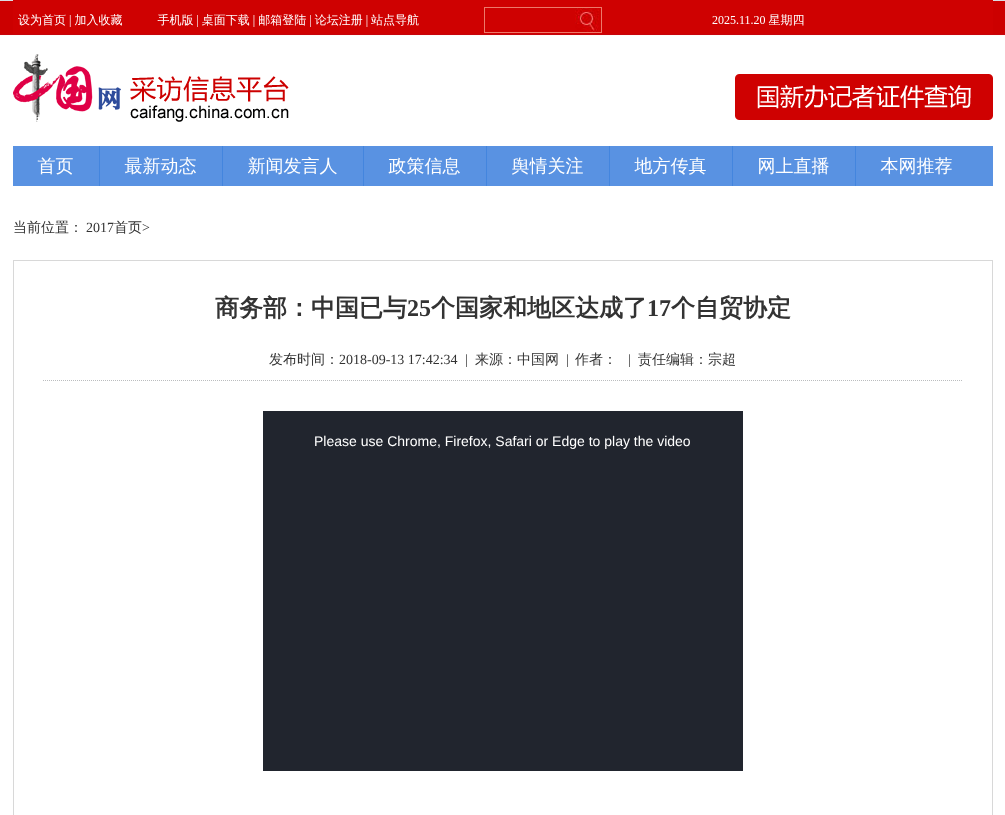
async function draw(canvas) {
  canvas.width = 1005
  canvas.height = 815
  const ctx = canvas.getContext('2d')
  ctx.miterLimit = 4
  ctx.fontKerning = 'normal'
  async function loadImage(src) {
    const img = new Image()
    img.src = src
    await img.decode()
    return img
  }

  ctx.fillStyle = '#fff'
  ctx.fillRect(0, 0, 1005, 815)
  ctx.drawImage(await loadImage('image0.png'), 0, 0, 1005, 186)
  ctx.font = '500 14px WenQuanYi Zen Hei'
  ctx.fillStyle = '#333'
  ctx.fillText('当前位置：', 13, 232)
  ctx.font = '14px Liberation Serif'
  ctx.fillText('2017', 86, 232)
  ctx.font = '500 14px WenQuanYi Zen Hei'
  ctx.fillText('首页', 114, 232)
  ctx.font = '14px Liberation Serif'
  ctx.fillText('>', 142, 232)
  ctx.strokeStyle = '#d8d8d8'
  ctx.strokeRect(13.5, 260.5, 979, 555)
  ctx.font = 'bold 24px WenQuanYi Zen Hei'
  ctx.fillText('商务部：中国已与', 215, 316)
  ctx.font = 'bold 24px Liberation Serif'
  ctx.fillText('25', 407, 316)
  ctx.font = 'bold 24px WenQuanYi Zen Hei'
  ctx.fillText('个国家和地区达成了', 431, 316)
  ctx.font = 'bold 24px Liberation Serif'
  ctx.fillText('17', 647, 316)
  ctx.font = 'bold 24px WenQuanYi Zen Hei'
  ctx.fillText('个自贸协定', 671, 316)
  ctx.beginPath()
  ctx.moveTo(43, 380.5)
  ctx.lineTo(963, 380.5)
  ctx.strokeStyle = '#bbbdbf'
  ctx.setLineDash([1, 1])
  ctx.stroke()
  ctx.font = '500 14px WenQuanYi Zen Hei'
  ctx.fillText('发布时间：', 269, 364)
  ctx.font = '14px Liberation Serif'
  ctx.fillText('2018-09-13 17:42:34', 339, 364)
  ctx.fillText('|', 465, 364)
  ctx.font = '500 14px WenQuanYi Zen Hei'
  ctx.fillText('来源：中国网', 475, 364)
  ctx.font = '14px Liberation Serif'
  ctx.fillText('|', 566, 364)
  ctx.font = '500 14px WenQuanYi Zen Hei'
  ctx.fillText('作者：', 575, 364)
  ctx.font = '14px Liberation Serif'
  ctx.fillText('|', 628, 364)
  ctx.font = '500 14px WenQuanYi Zen Hei'
  ctx.fillText('责任编辑：宗超', 638, 364)
  ctx.fillStyle = '#21252e'
  ctx.fillRect(263, 411, 480, 360)
  ctx.font = '14px Liberation Sans'
  ctx.fillStyle = '#fff'
  ctx.fillText('Please use Chrome, Firefox, Safari or Edge to play the video', 314, 446)
}

draw(document.querySelector('canvas'))
